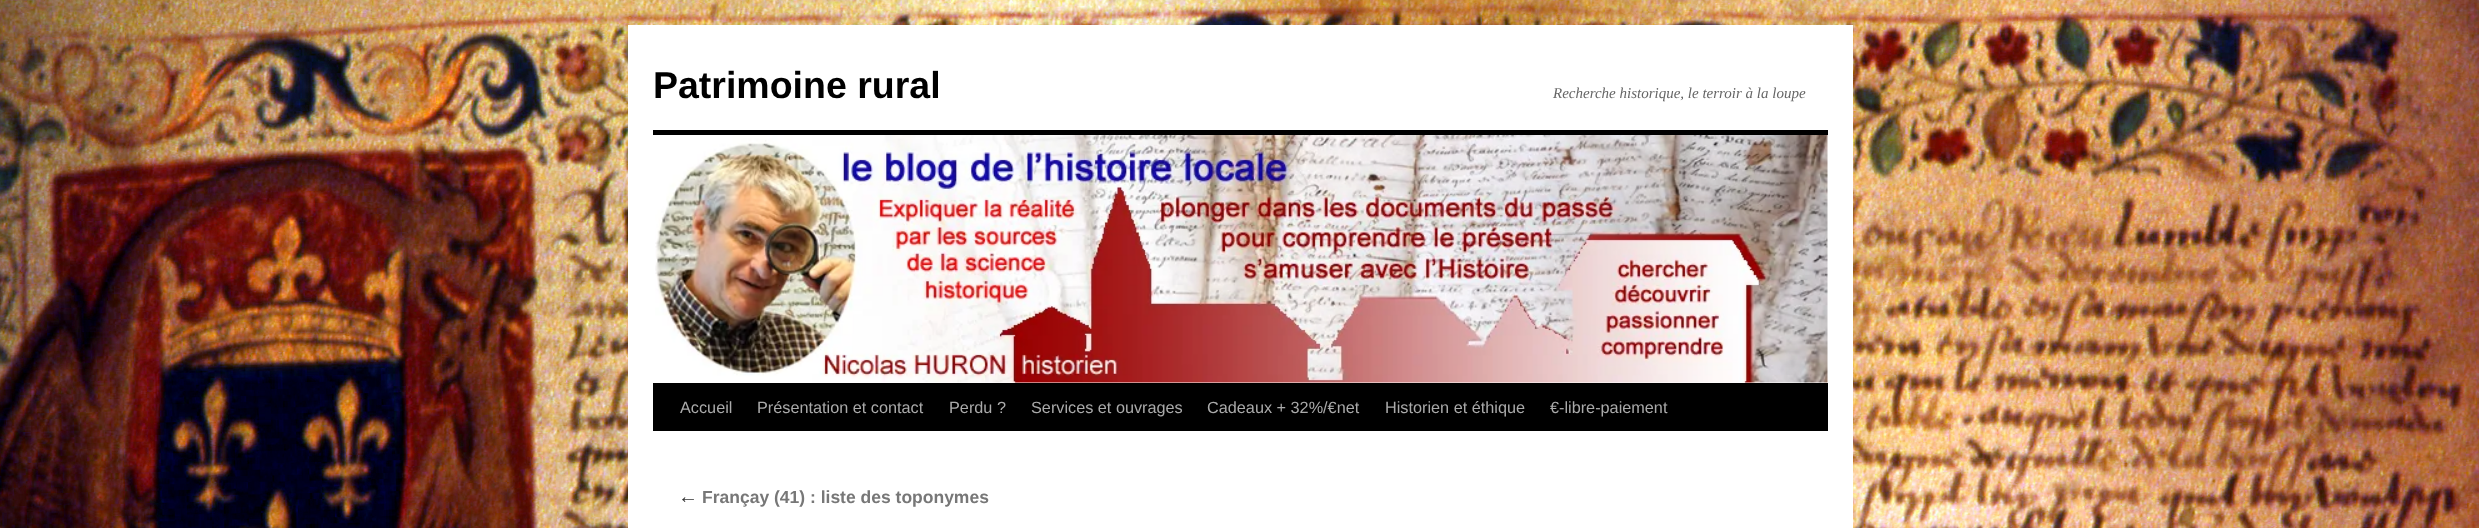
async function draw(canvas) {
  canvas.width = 2479
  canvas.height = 528
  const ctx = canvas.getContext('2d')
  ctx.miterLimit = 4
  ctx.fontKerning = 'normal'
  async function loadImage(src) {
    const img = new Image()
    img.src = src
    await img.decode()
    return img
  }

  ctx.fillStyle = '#fff'
  ctx.fillRect(0, 0, 2479, 528)
  ctx.drawImage(await loadImage('image0.png'), 0, 0, 2479, 528)
  ctx.fillRect(628, 25, 1225, 503)
  ctx.font = 'bold 37.5px Liberation Sans'
  ctx.fillStyle = '#000'
  ctx.fillText('Patrimoine rural', 653, 98)
  ctx.font = 'italic 15px Liberation Serif'
  ctx.fillStyle = '#666'
  ctx.fillText('Recherche historique, le terroir à la loupe', 1553, 98)
  ctx.fillStyle = '#000'
  ctx.fillRect(653, 130, 1175, 5)
  ctx.fillRect(653, 383, 1175, 48)
  ctx.drawImage(await loadImage('image1.png'), 655, 135, 1173, 248)
  ctx.font = '16.25px Liberation Sans'
  ctx.fillStyle = '#aaa'
  ctx.fillText('Accueil', 680, 413)
  ctx.fillText('Présentation et contact', 757, 413)
  ctx.fillText('Perdu ?', 949, 413)
  ctx.fillText('Services et ouvrages', 1031, 413)
  ctx.fillText('Cadeaux + 32%/€net', 1207, 413)
  ctx.fillText('Historien et éthique', 1385, 413)
  ctx.fillText('€-libre-paiement', 1550, 413)
  ctx.font = 'italic 20px Liberation Serif'
  ctx.fillStyle = '#333'
  ctx.fillText('←', 678, 503)
  ctx.font = 'bold 17.5px Liberation Sans'
  ctx.fillStyle = '#777'
  ctx.fillText('Françay (41) : liste des toponymes', 702, 503)
}

draw(document.querySelector('canvas'))
